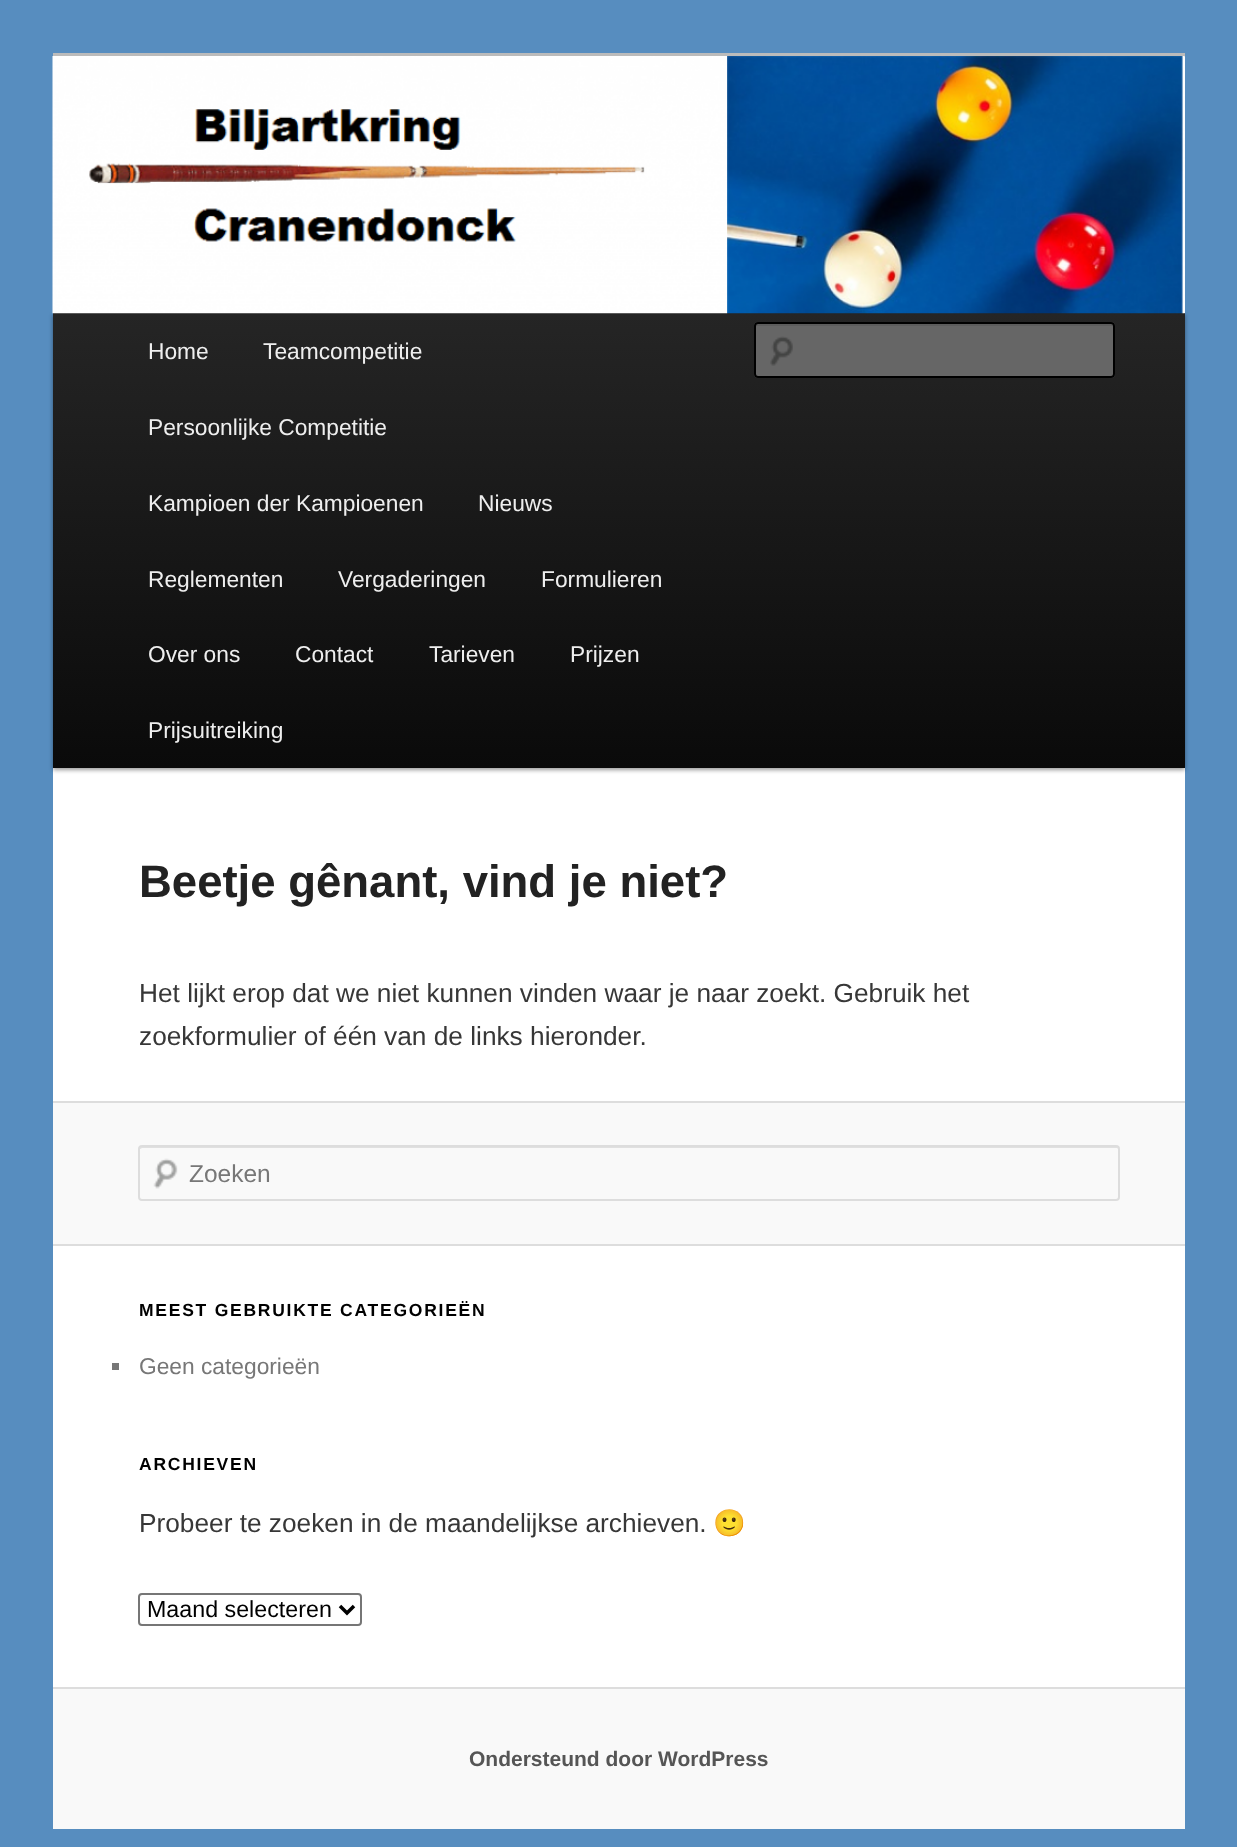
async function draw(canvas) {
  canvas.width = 1237
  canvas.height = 1847
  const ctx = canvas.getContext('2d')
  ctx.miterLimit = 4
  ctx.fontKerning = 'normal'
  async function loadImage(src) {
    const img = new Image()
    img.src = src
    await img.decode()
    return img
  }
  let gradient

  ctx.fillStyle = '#578dbf'
  ctx.fillRect(0, 0, 1237, 1847)
  ctx.fillStyle = '#fff'
  ctx.fillRect(53, 57, 1132, 1630)
  ctx.fillStyle = '#bbb'
  ctx.fillRect(53, 53, 1132, 4)
  ctx.fillStyle = '#00000066'
  ctx.filter = 'blur(2px)'
  ctx.beginPath()
  ctx.rect(53, 315, 1132, 455)
  ctx.fill()
  ctx.filter = 'none'
  gradient = ctx.createLinearGradient(619, 313, 619, 768)
  gradient.addColorStop(0, '#252525')
  gradient.addColorStop(1, '#0a0a0a')
  ctx.fillStyle = gradient
  ctx.fillRect(53, 313, 1132, 455)
  ctx.drawImage(await loadImage('image0.png'), 52, 56, 1133, 258)
  ctx.font = '22.75px Liberation Sans'
  ctx.fillStyle = '#eee'
  ctx.fillText('Home', 148, 359)
  ctx.fillText('Teamcompetitie', 263, 359)
  ctx.fillText('Persoonlijke Competitie', 148, 435)
  ctx.fillText('Kampioen der Kampioenen', 148, 511)
  ctx.fillText('Nieuws', 478, 511)
  ctx.fillText('Reglementen', 148, 587)
  ctx.fillText('Vergaderingen', 338, 587)
  ctx.fillText('Formulieren', 541, 587)
  ctx.fillText('Over ons', 148, 662)
  ctx.fillText('Contact', 295, 662)
  ctx.fillText('Tarieven', 429, 662)
  ctx.fillText('Prijzen', 570, 662)
  ctx.fillText('Prijsuitreiking', 148, 738)
  ctx.fillStyle = '#666'
  ctx.beginPath()
  ctx.roundRect(754, 322, 361, 56, 4)
  ctx.fill()
  ctx.drawImage(await loadImage('image1.png'), 770, 336, 23, 30)
  ctx.fillStyle = '#5c5c5c'
  ctx.beginPath()
  ctx.moveTo(758, 326)
  ctx.lineTo(1111, 326)
  ctx.bezierCurveTo(1112, 326, 1113, 326, 1113, 327)
  ctx.bezierCurveTo(1113, 326, 1113, 324, 1111, 324)
  ctx.lineTo(758, 324)
  ctx.bezierCurveTo(756, 324, 756, 326, 756, 327)
  ctx.bezierCurveTo(756, 326, 757, 326, 758, 326)
  ctx.closePath()
  ctx.fill()
  ctx.beginPath()
  ctx.roundRect(755, 323, 359, 54, 3)
  ctx.strokeStyle = '#000'
  ctx.lineWidth = 2
  ctx.stroke()
  ctx.font = 'bold 45.5px Liberation Sans'
  ctx.fillStyle = '#222'
  ctx.fillText('Beetje gênant, vind je niet?', 139, 897)
  ctx.font = '26.25px Liberation Sans'
  ctx.fillStyle = '#373737'
  ctx.fillText('Het lijkt erop dat we niet kunnen vinden waar je naar zoekt. Gebruik het', 139, 1002)
  ctx.fillText('zoekformulier of één van de links hieronder.', 139, 1045)
  ctx.fillStyle = '#f9f9f9'
  ctx.fillRect(53, 1103, 1132, 141)
  ctx.fillStyle = '#ddd'
  ctx.fillRect(53, 1101, 1132, 2)
  ctx.fillRect(53, 1244, 1132, 2)
  ctx.drawImage(await loadImage('image2.png'), 153, 1158, 25, 31)
  ctx.fillStyle = '#e0e0e0'
  ctx.beginPath()
  ctx.moveTo(142, 1148)
  ctx.lineTo(1117, 1148)
  ctx.bezierCurveTo(1118, 1148, 1118, 1149, 1118, 1150)
  ctx.lineTo(1118, 1148)
  ctx.bezierCurveTo(1118, 1147, 1117, 1146, 1116, 1146)
  ctx.lineTo(142, 1146)
  ctx.bezierCurveTo(141, 1146, 140, 1147, 140, 1148)
  ctx.lineTo(140, 1149)
  ctx.closePath()
  ctx.fill()
  ctx.beginPath()
  ctx.roundRect(139, 1146, 980, 54, 3)
  ctx.strokeStyle = '#ddd'
  ctx.stroke()
  ctx.font = '24.5px Liberation Sans'
  ctx.fillStyle = '#777'
  ctx.fillText('Zoeken', 189, 1182)
  ctx.letterSpacing = '1.75px'
  ctx.font = 'bold 17.5px Liberation Sans'
  ctx.fillStyle = '#000'
  ctx.fillText('MEEST GEBRUIKTE CATEGORIEËN', 139, 1316)
  ctx.fillStyle = '#777'
  ctx.fillRect(112, 1363, 7, 7)
  ctx.letterSpacing = '0px'
  ctx.font = '22.75px Liberation Sans'
  ctx.fillText('Geen categorieën', 139, 1374)
  ctx.letterSpacing = '1.75px'
  ctx.font = 'bold 17.5px Liberation Sans'
  ctx.fillStyle = '#000'
  ctx.fillText('ARCHIEVEN', 139, 1470)
  ctx.letterSpacing = '0px'
  ctx.font = '26.25px Liberation Sans'
  ctx.fillStyle = '#373737'
  ctx.fillText('Probeer te zoeken in de maandelijkse archieven.', 139, 1532)
  ctx.font = '26.25px Noto Color Emoji'
  ctx.fillText('🙂', 713, 1532)
  ctx.beginPath()
  ctx.roundRect(139, 1594, 222, 31, 3)
  ctx.strokeStyle = '#767676'
  ctx.stroke()
  ctx.beginPath()
  ctx.moveTo(340, 1606)
  ctx.lineTo(347, 1613)
  ctx.lineTo(354, 1606)
  ctx.strokeStyle = '#000'
  ctx.lineWidth = 3.5
  ctx.stroke()
  ctx.font = '23.25px Liberation Sans'
  ctx.fillStyle = '#000'
  ctx.fillText('Maand selecteren', 147, 1617)
  ctx.fillStyle = '#f9f9f9'
  ctx.fillRect(53, 1689, 1132, 140)
  ctx.fillStyle = '#ddd'
  ctx.fillRect(53, 1687, 1132, 2)
  ctx.font = 'bold 21px Liberation Sans'
  ctx.fillStyle = '#555'
  ctx.fillText('Ondersteund door WordPress', 469, 1766)
}

draw(document.querySelector('canvas'))
